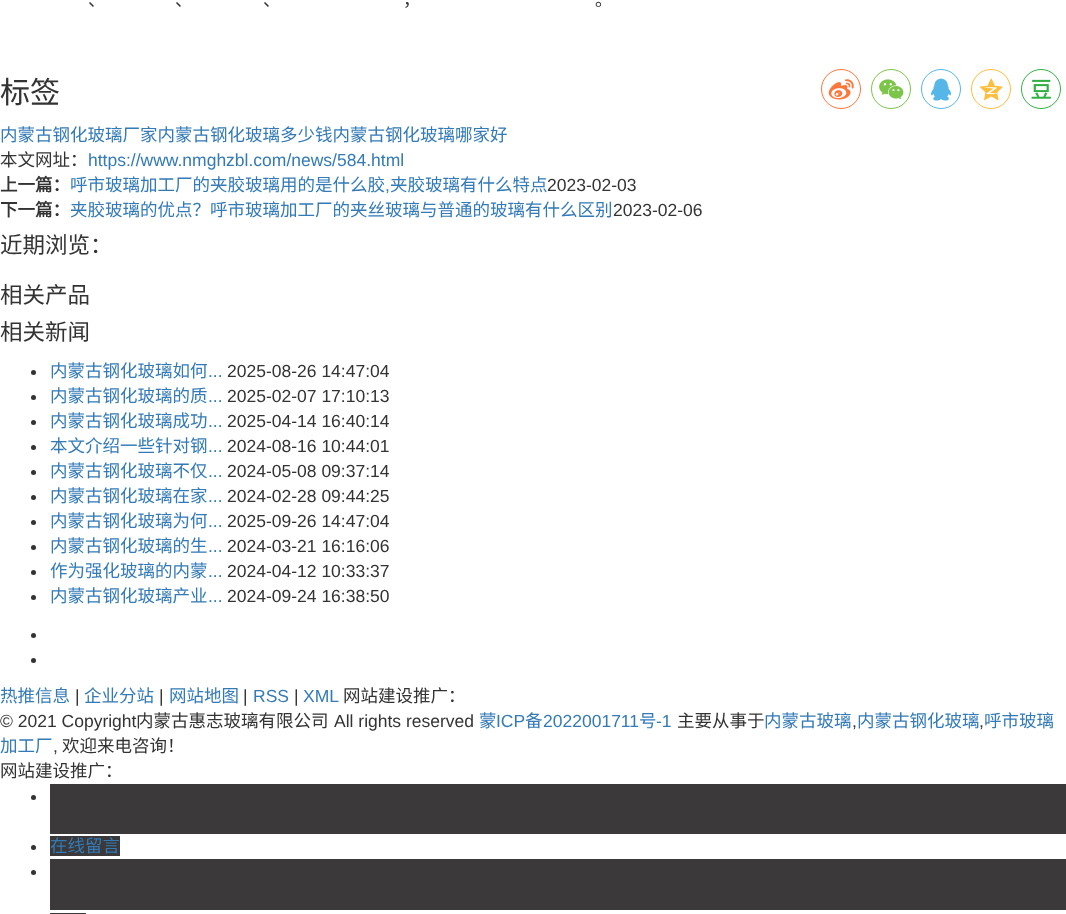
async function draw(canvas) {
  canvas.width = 1066
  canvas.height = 914
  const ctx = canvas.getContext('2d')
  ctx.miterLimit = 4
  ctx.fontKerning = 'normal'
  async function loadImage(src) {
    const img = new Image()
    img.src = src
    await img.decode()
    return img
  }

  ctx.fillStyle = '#fff'
  ctx.fillRect(0, 0, 1066, 914)
  ctx.font = '17.5px Noto Sans CJK SC'
  ctx.fillStyle = '#333'
  ctx.fillText('、', 88, 6)
  ctx.fillText('、', 175, 6)
  ctx.fillText('、', 263, 6)
  ctx.fillText('，', 403, 6)
  ctx.fillText('。', 595, 6)
  ctx.font = '30px Noto Sans CJK SC'
  ctx.fillText('标签', 0, 103)
  ctx.font = '17.5px Noto Sans CJK SC'
  ctx.fillStyle = '#337ab7'
  ctx.fillText('内蒙古钢化玻璃厂家内蒙古钢化玻璃多少钱内蒙古钢化玻璃哪家好', 0, 141)
  ctx.beginPath()
  ctx.arc(841, 89, 19.5, 0, 2 * Math.PI)
  ctx.strokeStyle = '#ff763b'
  ctx.stroke()
  ctx.drawImage(await loadImage('image0.png'), 828, 79, 26, 21)
  ctx.beginPath()
  ctx.arc(891, 89, 19.5, 0, 2 * Math.PI)
  ctx.strokeStyle = '#7bc549'
  ctx.stroke()
  ctx.drawImage(await loadImage('image1.png'), 879, 79, 25, 21)
  ctx.beginPath()
  ctx.arc(941, 89, 19.5, 0, 2 * Math.PI)
  ctx.strokeStyle = '#56b6e7'
  ctx.stroke()
  ctx.drawImage(await loadImage('image2.png'), 931, 78, 20, 23)
  ctx.beginPath()
  ctx.arc(991, 89, 19.5, 0, 2 * Math.PI)
  ctx.strokeStyle = '#fdbe3d'
  ctx.stroke()
  ctx.drawImage(await loadImage('image3.png'), 979, 78, 24, 23)
  ctx.beginPath()
  ctx.arc(1041, 89, 19.5, 0, 2 * Math.PI)
  ctx.strokeStyle = '#33b045'
  ctx.stroke()
  ctx.drawImage(await loadImage('image4.png'), 1031, 79, 20, 20)
  ctx.fillStyle = '#333'
  ctx.fillText('本文网址：', 0, 166)
  ctx.font = '17.5px Liberation Sans'
  ctx.fillStyle = '#337ab7'
  ctx.fillText('https://www.nmghzbl.com/news/584.html', 88, 166)
  ctx.font = 'bold 17.5px Noto Sans CJK SC'
  ctx.fillStyle = '#333'
  ctx.fillText('上一篇：', 0, 191)
  ctx.font = '17.5px Noto Sans CJK SC'
  ctx.fillStyle = '#337ab7'
  ctx.fillText('呼市玻璃加工厂的夹胶玻璃用的是什么胶', 70, 191)
  ctx.font = '17.5px Liberation Sans'
  ctx.fillText(',', 385, 191)
  ctx.font = '17.5px Noto Sans CJK SC'
  ctx.fillText('夹胶玻璃有什么特点', 390, 191)
  ctx.font = '17.5px Liberation Sans'
  ctx.fillStyle = '#333'
  ctx.fillText('2023-02-03', 547, 191)
  ctx.font = 'bold 17.5px Noto Sans CJK SC'
  ctx.fillText('下一篇：', 0, 216)
  ctx.font = '17.5px Noto Sans CJK SC'
  ctx.fillStyle = '#337ab7'
  ctx.fillText('夹胶玻璃的优点？呼市玻璃加工厂的夹丝玻璃与普通的玻璃有什么区别', 70, 216)
  ctx.font = '17.5px Liberation Sans'
  ctx.fillStyle = '#333'
  ctx.fillText('2023-02-06', 613, 216)
  ctx.font = '22.5px Noto Sans CJK SC'
  ctx.fillText('近期浏览：', 0, 253)
  ctx.fillText('相关产品', 0, 303)
  ctx.fillText('相关新闻', 0, 340)
  ctx.beginPath()
  ctx.arc(33.5, 372.5, 2.5, 0, 2 * Math.PI)
  ctx.fill()
  ctx.font = '17.5px Noto Sans CJK SC'
  ctx.fillStyle = '#337ab7'
  ctx.fillText('内蒙古钢化玻璃如何', 50, 377)
  ctx.font = '17.5px Liberation Sans'
  ctx.fillStyle = '#333'
  ctx.fillText('2025-08-26 14:47:04', 227, 377)
  ctx.fillStyle = '#337ab7'
  ctx.fillText('...', 208, 377)
  ctx.fillStyle = '#333'
  ctx.beginPath()
  ctx.arc(33.5, 397.5, 2.5, 0, 2 * Math.PI)
  ctx.fill()
  ctx.font = '17.5px Noto Sans CJK SC'
  ctx.fillStyle = '#337ab7'
  ctx.fillText('内蒙古钢化玻璃的质', 50, 402)
  ctx.font = '17.5px Liberation Sans'
  ctx.fillStyle = '#333'
  ctx.fillText('2025-02-07 17:10:13', 227, 402)
  ctx.fillStyle = '#337ab7'
  ctx.fillText('...', 208, 402)
  ctx.fillStyle = '#333'
  ctx.beginPath()
  ctx.arc(33.5, 422.5, 2.5, 0, 2 * Math.PI)
  ctx.fill()
  ctx.font = '17.5px Noto Sans CJK SC'
  ctx.fillStyle = '#337ab7'
  ctx.fillText('内蒙古钢化玻璃成功', 50, 427)
  ctx.font = '17.5px Liberation Sans'
  ctx.fillStyle = '#333'
  ctx.fillText('2025-04-14 16:40:14', 227, 427)
  ctx.fillStyle = '#337ab7'
  ctx.fillText('...', 208, 427)
  ctx.fillStyle = '#333'
  ctx.beginPath()
  ctx.arc(33.5, 447.5, 2.5, 0, 2 * Math.PI)
  ctx.fill()
  ctx.font = '17.5px Noto Sans CJK SC'
  ctx.fillStyle = '#337ab7'
  ctx.fillText('本文介绍一些针对钢', 50, 452)
  ctx.font = '17.5px Liberation Sans'
  ctx.fillStyle = '#333'
  ctx.fillText('2024-08-16 10:44:01', 227, 452)
  ctx.fillStyle = '#337ab7'
  ctx.fillText('...', 208, 452)
  ctx.fillStyle = '#333'
  ctx.beginPath()
  ctx.arc(33.5, 472.5, 2.5, 0, 2 * Math.PI)
  ctx.fill()
  ctx.font = '17.5px Noto Sans CJK SC'
  ctx.fillStyle = '#337ab7'
  ctx.fillText('内蒙古钢化玻璃不仅', 50, 477)
  ctx.font = '17.5px Liberation Sans'
  ctx.fillStyle = '#333'
  ctx.fillText('2024-05-08 09:37:14', 227, 477)
  ctx.fillStyle = '#337ab7'
  ctx.fillText('...', 208, 477)
  ctx.fillStyle = '#333'
  ctx.beginPath()
  ctx.arc(33.5, 497.5, 2.5, 0, 2 * Math.PI)
  ctx.fill()
  ctx.font = '17.5px Noto Sans CJK SC'
  ctx.fillStyle = '#337ab7'
  ctx.fillText('内蒙古钢化玻璃在家', 50, 502)
  ctx.font = '17.5px Liberation Sans'
  ctx.fillStyle = '#333'
  ctx.fillText('2024-02-28 09:44:25', 227, 502)
  ctx.fillStyle = '#337ab7'
  ctx.fillText('...', 208, 502)
  ctx.fillStyle = '#333'
  ctx.beginPath()
  ctx.arc(33.5, 522.5, 2.5, 0, 2 * Math.PI)
  ctx.fill()
  ctx.font = '17.5px Noto Sans CJK SC'
  ctx.fillStyle = '#337ab7'
  ctx.fillText('内蒙古钢化玻璃为何', 50, 527)
  ctx.font = '17.5px Liberation Sans'
  ctx.fillStyle = '#333'
  ctx.fillText('2025-09-26 14:47:04', 227, 527)
  ctx.fillStyle = '#337ab7'
  ctx.fillText('...', 208, 527)
  ctx.fillStyle = '#333'
  ctx.beginPath()
  ctx.arc(33.5, 547.5, 2.5, 0, 2 * Math.PI)
  ctx.fill()
  ctx.font = '17.5px Noto Sans CJK SC'
  ctx.fillStyle = '#337ab7'
  ctx.fillText('内蒙古钢化玻璃的生', 50, 552)
  ctx.font = '17.5px Liberation Sans'
  ctx.fillStyle = '#333'
  ctx.fillText('2024-03-21 16:16:06', 227, 552)
  ctx.fillStyle = '#337ab7'
  ctx.fillText('...', 208, 552)
  ctx.fillStyle = '#333'
  ctx.beginPath()
  ctx.arc(33.5, 572.5, 2.5, 0, 2 * Math.PI)
  ctx.fill()
  ctx.font = '17.5px Noto Sans CJK SC'
  ctx.fillStyle = '#337ab7'
  ctx.fillText('作为强化玻璃的内蒙', 50, 577)
  ctx.font = '17.5px Liberation Sans'
  ctx.fillStyle = '#333'
  ctx.fillText('2024-04-12 10:33:37', 227, 577)
  ctx.fillStyle = '#337ab7'
  ctx.fillText('...', 208, 577)
  ctx.fillStyle = '#333'
  ctx.beginPath()
  ctx.arc(33.5, 597.5, 2.5, 0, 2 * Math.PI)
  ctx.fill()
  ctx.font = '17.5px Noto Sans CJK SC'
  ctx.fillStyle = '#337ab7'
  ctx.fillText('内蒙古钢化玻璃产业', 50, 602)
  ctx.font = '17.5px Liberation Sans'
  ctx.fillStyle = '#333'
  ctx.fillText('2024-09-24 16:38:50', 227, 602)
  ctx.fillStyle = '#337ab7'
  ctx.fillText('...', 208, 602)
  ctx.fillStyle = '#333'
  ctx.beginPath()
  ctx.arc(33.5, 635.5, 2.5, 0, 2 * Math.PI)
  ctx.fill()
  ctx.beginPath()
  ctx.arc(33.5, 660.5, 2.5, 0, 2 * Math.PI)
  ctx.fill()
  ctx.font = '17.5px Noto Sans CJK SC'
  ctx.fillStyle = '#337ab7'
  ctx.fillText('热推信息', 0, 702)
  ctx.font = '17.5px Liberation Sans'
  ctx.fillStyle = '#333'
  ctx.fillText('|', 75, 702)
  ctx.font = '17.5px Noto Sans CJK SC'
  ctx.fillStyle = '#337ab7'
  ctx.fillText('企业分站', 84, 702)
  ctx.font = '17.5px Liberation Sans'
  ctx.fillStyle = '#333'
  ctx.fillText('|', 159, 702)
  ctx.font = '17.5px Noto Sans CJK SC'
  ctx.fillStyle = '#337ab7'
  ctx.fillText('网站地图', 169, 702)
  ctx.font = '17.5px Liberation Sans'
  ctx.fillStyle = '#333'
  ctx.fillText('|', 243, 702)
  ctx.fillStyle = '#337ab7'
  ctx.fillText('RSS', 253, 702)
  ctx.fillStyle = '#333'
  ctx.fillText('|', 294, 702)
  ctx.fillStyle = '#337ab7'
  ctx.fillText('XML', 303, 702)
  ctx.font = '17.5px Noto Sans CJK SC'
  ctx.fillStyle = '#333'
  ctx.fillText('网站建设推广：', 343, 702)
  ctx.font = '17.5px Liberation Sans'
  ctx.fillText('© 2021 Copyright', 0, 727)
  ctx.font = '17.5px Noto Sans CJK SC'
  ctx.fillText('内蒙古惠志玻璃有限公司', 136, 727)
  ctx.font = '17.5px Liberation Sans'
  ctx.fillText('All rights reserved', 334, 727)
  ctx.font = '17.5px Noto Sans CJK SC'
  ctx.fillStyle = '#337ab7'
  ctx.fillText('蒙', 479, 727)
  ctx.font = '17.5px Liberation Sans'
  ctx.fillText('ICP', 496, 727)
  ctx.font = '17.5px Noto Sans CJK SC'
  ctx.fillText('备', 525, 727)
  ctx.font = '17.5px Liberation Sans'
  ctx.fillText('2022001711', 543, 727)
  ctx.font = '17.5px Noto Sans CJK SC'
  ctx.fillText('号', 639, 727)
  ctx.font = '17.5px Liberation Sans'
  ctx.fillText('-1', 656, 727)
  ctx.font = '17.5px Noto Sans CJK SC'
  ctx.fillStyle = '#333'
  ctx.fillText('主要从事于', 677, 727)
  ctx.fillStyle = '#337ab7'
  ctx.fillText('内蒙古玻璃', 764, 727)
  ctx.fillText('内蒙古钢化玻璃', 857, 727)
  ctx.fillText('呼市玻璃', 984, 727)
  ctx.font = '17.5px Liberation Sans'
  ctx.fillStyle = '#333'
  ctx.fillText(',', 852, 727)
  ctx.fillText(',', 979, 727)
  ctx.font = '17.5px Noto Sans CJK SC'
  ctx.fillStyle = '#337ab7'
  ctx.fillText('加工厂', 0, 752)
  ctx.font = '17.5px Liberation Sans'
  ctx.fillStyle = '#333'
  ctx.fillText(',', 53, 752)
  ctx.font = '17.5px Noto Sans CJK SC'
  ctx.fillText('欢迎来电咨询！', 62, 752)
  ctx.fillText('网站建设推广：', 0, 777)
  ctx.fillStyle = '#3b3939'
  ctx.fillRect(50, 784, 1016, 50)
  ctx.fillStyle = '#333'
  ctx.beginPath()
  ctx.arc(33.5, 797.5, 2.5, 0, 2 * Math.PI)
  ctx.fill()
  ctx.beginPath()
  ctx.arc(33.5, 847.5, 2.5, 0, 2 * Math.PI)
  ctx.fill()
  ctx.fillStyle = '#3b3939'
  ctx.fillRect(50, 836, 70, 20)
  ctx.fillStyle = '#337ab7'
  ctx.fillText('在线留言', 50, 852)
  ctx.fillStyle = '#3b3939'
  ctx.fillRect(50, 859, 1016, 51)
  ctx.fillStyle = '#333'
  ctx.beginPath()
  ctx.arc(33.5, 872.5, 2.5, 0, 2 * Math.PI)
  ctx.fill()
  ctx.fillStyle = '#3b3939'
  ctx.fillRect(50, 913, 36, 1)
}

draw(document.querySelector('canvas'))
